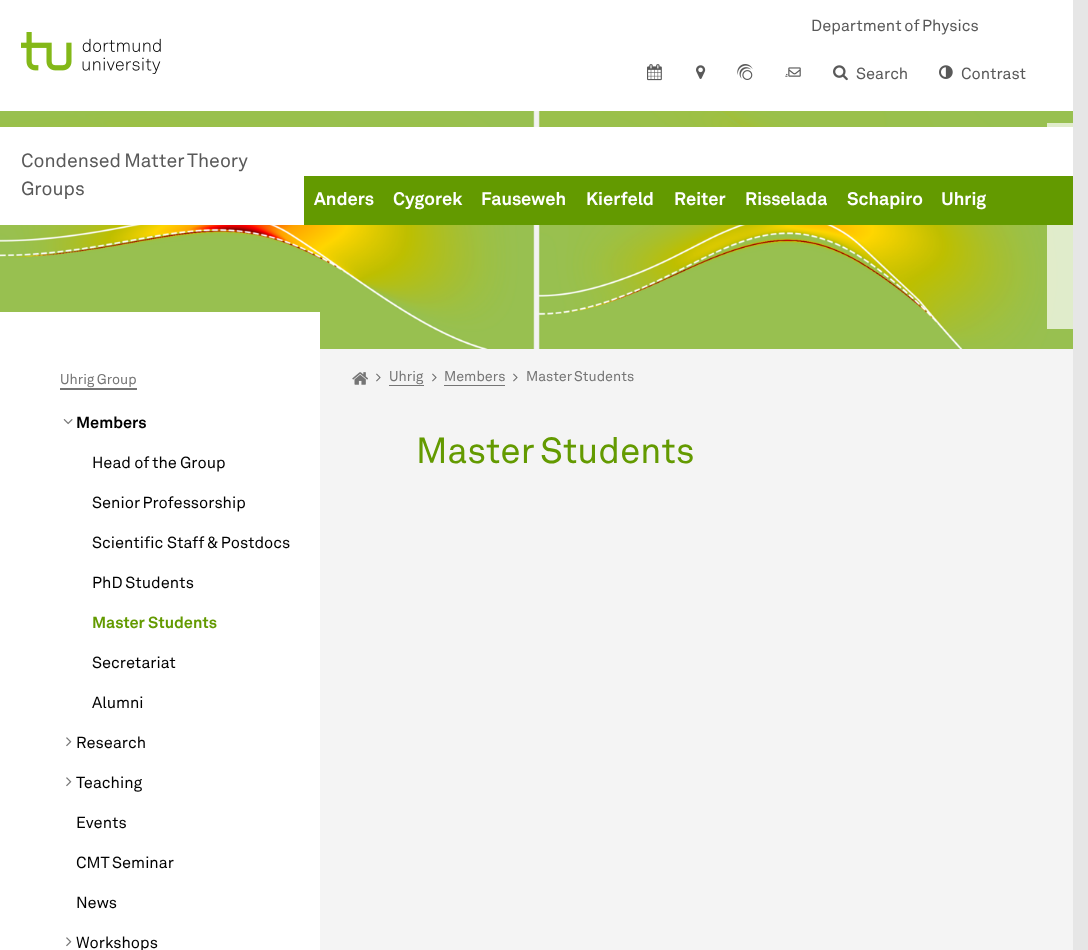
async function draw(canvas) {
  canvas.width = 1088
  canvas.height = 950
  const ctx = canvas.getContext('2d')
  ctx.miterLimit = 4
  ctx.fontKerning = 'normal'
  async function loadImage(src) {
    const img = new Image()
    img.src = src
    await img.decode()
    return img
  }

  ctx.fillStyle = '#e6e6e6'
  ctx.fillRect(0, 0, 1088, 950)
  ctx.fillStyle = '#fff'
  ctx.fillRect(0, 0, 1073, 111)
  ctx.wordSpacing = '-1px'
  ctx.font = '16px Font'
  ctx.fillStyle = '#595959'
  ctx.fillText('Department of Physics', 811, 31)
  ctx.drawImage(await loadImage('image0.png'), 21, 32, 140, 42)
  ctx.drawImage(await loadImage('image1.png'), 647, 64, 15, 17)
  ctx.drawImage(await loadImage('image2.png'), 696, 65, 10, 14)
  ctx.drawImage(await loadImage('image3.png'), 737, 64, 16, 16)
  ctx.drawImage(await loadImage('image4.png'), 785, 67, 16, 10)
  ctx.drawImage(await loadImage('image5.png'), 833, 65, 15, 16)
  ctx.wordSpacing = '0px'
  ctx.fillText('Search', 856, 79)
  ctx.drawImage(await loadImage('image6.png'), 939, 65, 14, 14)
  ctx.fillText('Contrast', 961, 79)
  ctx.drawImage(await loadImage('image7.png'), 0, 111, 1073, 238)
  ctx.fillStyle = '#ffffffb3'
  ctx.fillRect(1047, 123, 26, 206)
  ctx.fillStyle = '#fff'
  ctx.fillRect(0, 127, 1073, 98)
  ctx.wordSpacing = '-1px'
  ctx.font = '19px Font'
  ctx.fillStyle = '#595959'
  ctx.fillText('Condensed Matter Theory', 21, 167)
  ctx.wordSpacing = '0px'
  ctx.fillText('Groups', 21, 195)
  ctx.fillStyle = '#639a00'
  ctx.fillRect(304, 176, 769, 49)
  ctx.font = 'bold 18px Font'
  ctx.fillStyle = '#fff'
  ctx.fillText('Anders', 314, 205)
  ctx.fillText('Cygorek', 393, 205)
  ctx.fillText('Fauseweh', 481, 205)
  ctx.fillText('Kierfeld', 586, 205)
  ctx.fillText('Reiter', 674, 205)
  ctx.fillText('Risselada', 745, 205)
  ctx.fillText('Schapiro', 847, 205)
  ctx.fillText('Uhrig', 941, 205)
  ctx.fillStyle = '#f4f4f4'
  ctx.fillRect(320, 349, 753, 601)
  ctx.fillStyle = '#fff'
  ctx.fillRect(0, 312, 320, 638)
  ctx.wordSpacing = '-1px'
  ctx.font = '14px Font'
  ctx.fillStyle = '#757575'
  ctx.fillText('Uhrig Group', 60, 384)
  ctx.fillRect(60, 388, 77, 2)
  ctx.drawImage(await loadImage('image8.png'), 63, 419, 10, 6)
  ctx.wordSpacing = '0px'
  ctx.font = 'bold 16px Font'
  ctx.fillStyle = '#000'
  ctx.fillText('Members', 76, 428)
  ctx.wordSpacing = '-0.5px'
  ctx.font = '16px Font'
  ctx.fillText('Head of the Group', 92, 468)
  ctx.wordSpacing = '-1px'
  ctx.fillText('Senior Professorship', 92, 508)
  ctx.wordSpacing = '0px'
  ctx.fillText('Scientific Staff & Postdocs', 92, 548)
  ctx.wordSpacing = '-1px'
  ctx.fillText('PhD Students', 92, 588)
  ctx.wordSpacing = '0px'
  ctx.font = 'bold 16px Font'
  ctx.fillStyle = '#639a00'
  ctx.fillText('Master Students', 92, 628)
  ctx.font = '16px Font'
  ctx.fillStyle = '#000'
  ctx.fillText('Secretariat', 92, 668)
  ctx.fillText('Alumni', 92, 708)
  ctx.drawImage(await loadImage('image9.png'), 66, 737, 6, 10)
  ctx.fillText('Research', 76, 748)
  ctx.drawImage(await loadImage('image9.png'), 66, 777, 6, 10)
  ctx.fillText('Teaching', 76, 788)
  ctx.fillText('Events', 76, 828)
  ctx.wordSpacing = '-1px'
  ctx.fillText('CMT Seminar', 76, 868)
  ctx.wordSpacing = '0px'
  ctx.fillText('News', 76, 908)
  ctx.drawImage(await loadImage('image9.png'), 66, 937, 6, 10)
  ctx.fillText('Workshops', 76, 948)
  ctx.drawImage(await loadImage('image10.png'), 352, 372, 16, 13)
  ctx.drawImage(await loadImage('image11.png'), 376, 373, 5, 9)
  ctx.font = '14px Font'
  ctx.fillStyle = '#757575'
  ctx.fillText('Uhrig', 389, 381)
  ctx.fillRect(389, 385, 35, 1)
  ctx.drawImage(await loadImage('image11.png'), 432, 373, 5, 9)
  ctx.fillText('Members', 444, 381)
  ctx.fillRect(444, 385, 61, 1)
  ctx.drawImage(await loadImage('image11.png'), 513, 373, 5, 9)
  ctx.wordSpacing = '-1px'
  ctx.fillText('Master Students', 526, 381)
  ctx.wordSpacing = '-2px'
  ctx.font = '36px Font'
  ctx.fillStyle = '#639a00'
  ctx.fillText('Master Students', 416, 463)
}

draw(document.querySelector('canvas'))
